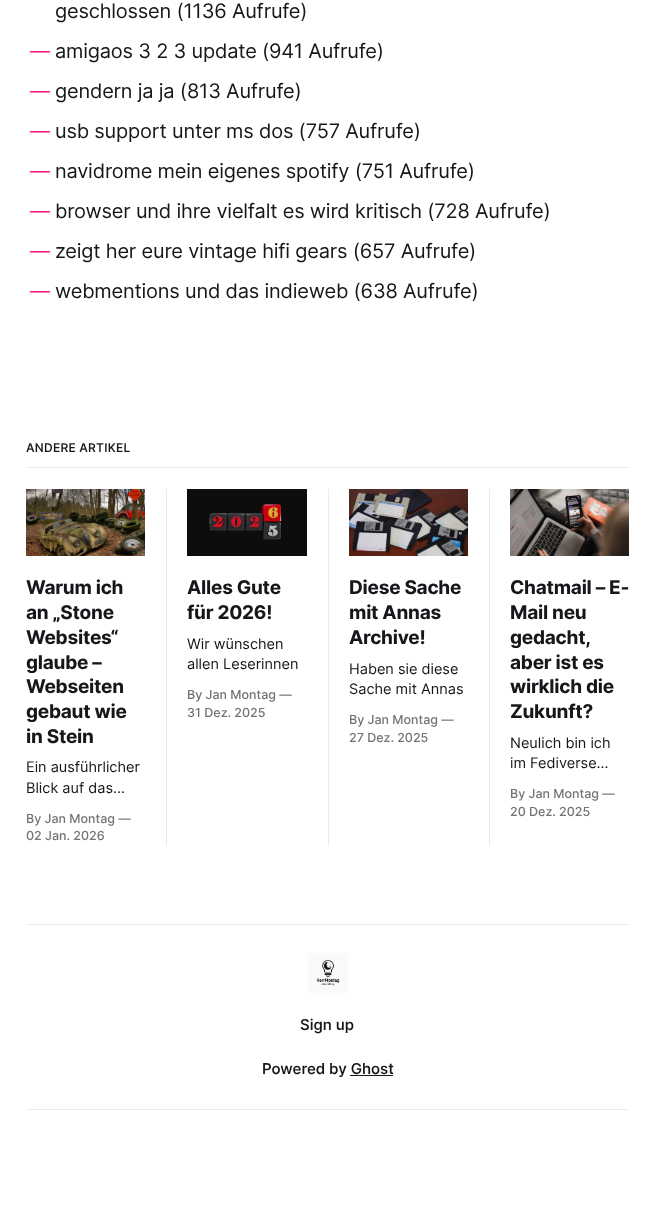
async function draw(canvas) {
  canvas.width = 655
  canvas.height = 1207
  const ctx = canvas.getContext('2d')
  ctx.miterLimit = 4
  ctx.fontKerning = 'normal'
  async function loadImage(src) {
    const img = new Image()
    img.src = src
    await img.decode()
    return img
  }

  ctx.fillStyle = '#fff'
  ctx.fillRect(0, 0, 655, 1207)
  ctx.letterSpacing = '-0.2px'
  ctx.font = '20px Inter'
  ctx.fillStyle = '#15171a'
  ctx.fillText('geschlossen (1136 Aufrufe)', 55, 18)
  ctx.fillStyle = '#ff1a75'
  ctx.fillText('—', 30, 58)
  ctx.fillStyle = '#15171a'
  ctx.fillText('amigaos 3 2 3 update (941 Aufrufe)', 55, 58)
  ctx.fillStyle = '#ff1a75'
  ctx.fillText('—', 30, 98)
  ctx.fillStyle = '#15171a'
  ctx.fillText('gendern ja ja (813 Aufrufe)', 55, 98)
  ctx.fillStyle = '#ff1a75'
  ctx.fillText('—', 30, 138)
  ctx.fillStyle = '#15171a'
  ctx.fillText('usb support unter ms dos (757 Aufrufe)', 55, 138)
  ctx.fillStyle = '#ff1a75'
  ctx.fillText('—', 30, 178)
  ctx.fillStyle = '#15171a'
  ctx.fillText('navidrome mein eigenes spotify (751 Aufrufe)', 55, 178)
  ctx.fillStyle = '#ff1a75'
  ctx.fillText('—', 30, 218)
  ctx.fillStyle = '#15171a'
  ctx.fillText('browser und ihre vielfalt es wird kritisch (728 Aufrufe)', 55, 218)
  ctx.fillStyle = '#ff1a75'
  ctx.fillText('—', 30, 258)
  ctx.fillStyle = '#15171a'
  ctx.fillText('zeigt her eure vintage hifi gears (657 Aufrufe)', 55, 258)
  ctx.fillStyle = '#ff1a75'
  ctx.fillText('—', 30, 298)
  ctx.fillStyle = '#15171a'
  ctx.fillText('webmentions und das indieweb (638 Aufrufe)', 55, 298)
  ctx.fillStyle = '#ebebeb'
  ctx.fillRect(26, 467, 603, 1)
  ctx.letterSpacing = '0.25px'
  ctx.font = '500 12px Inter'
  ctx.fillStyle = '#15171a'
  ctx.fillText('ANDERE ARTIKEL', 26, 452)
  ctx.drawImage(await loadImage('image0.png'), 26, 489, 119, 67)
  ctx.letterSpacing = '-0.25px'
  ctx.font = 'bold 19px Inter'
  ctx.fillText('Warum ich', 26, 594)
  ctx.fillText('an „Stone', 26, 619)
  ctx.fillText('Websites“', 26, 644)
  ctx.fillText('glaube –', 26, 669)
  ctx.fillText('Webseiten', 26, 693)
  ctx.fillText('gebaut wie', 26, 718)
  ctx.fillText('in Stein', 26, 743)
  ctx.letterSpacing = '0px'
  ctx.font = '14.5px Inter'
  ctx.fillText('Ein ausführlicher', 26, 772)
  ctx.fillText('Blick auf das…', 26, 793)
  ctx.font = '500 12.5px "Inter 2"'
  ctx.fillStyle = '#737373'
  ctx.fillText('By Jan Montag —', 26, 823)
  ctx.fillText('02 Jan. 2026', 26, 840)
  ctx.fillStyle = '#ebebeb'
  ctx.fillRect(166, 489, 1, 357)
  ctx.drawImage(await loadImage('image1.png'), 187, 489, 120, 67)
  ctx.letterSpacing = '-0.25px'
  ctx.font = 'bold 19px Inter'
  ctx.fillStyle = '#15171a'
  ctx.fillText('Alles Gute', 187, 594)
  ctx.fillText('für 2026!', 187, 619)
  ctx.letterSpacing = '0px'
  ctx.font = '14.5px Inter'
  ctx.fillText('Wir wünschen', 187, 649)
  ctx.fillText('allen Leserinnen', 187, 669)
  ctx.font = '500 12.5px "Inter 2"'
  ctx.fillStyle = '#737373'
  ctx.fillText('By Jan Montag —', 187, 699)
  ctx.fillText('31 Dez. 2025', 187, 717)
  ctx.fillStyle = '#ebebeb'
  ctx.fillRect(328, 489, 1, 357)
  ctx.drawImage(await loadImage('image2.png'), 349, 489, 119, 67)
  ctx.letterSpacing = '-0.25px'
  ctx.font = 'bold 19px Inter'
  ctx.fillStyle = '#15171a'
  ctx.fillText('Diese Sache', 349, 594)
  ctx.fillText('mit Annas', 349, 619)
  ctx.fillText('Archive!', 349, 644)
  ctx.letterSpacing = '0px'
  ctx.font = '14.5px Inter'
  ctx.fillText('Haben sie diese', 349, 674)
  ctx.fillText('Sache mit Annas', 349, 694)
  ctx.font = '500 12.5px "Inter 2"'
  ctx.fillStyle = '#737373'
  ctx.fillText('By Jan Montag —', 349, 724)
  ctx.fillText('27 Dez. 2025', 349, 742)
  ctx.fillStyle = '#ebebeb'
  ctx.fillRect(489, 489, 1, 357)
  ctx.drawImage(await loadImage('image3.png'), 510, 489, 119, 67)
  ctx.letterSpacing = '-0.25px'
  ctx.font = 'bold 19px Inter'
  ctx.fillStyle = '#15171a'
  ctx.fillText('Chatmail – E-', 510, 594)
  ctx.fillText('Mail neu', 510, 619)
  ctx.fillText('gedacht,', 510, 644)
  ctx.fillText('aber ist es', 510, 669)
  ctx.fillText('wirklich die', 510, 693)
  ctx.fillText('Zukunft?', 510, 718)
  ctx.letterSpacing = '0px'
  ctx.font = '14.5px Inter'
  ctx.fillText('Neulich bin ich', 510, 748)
  ctx.fillText('im Fediverse…', 510, 768)
  ctx.font = '500 12.5px "Inter 2"'
  ctx.fillStyle = '#737373'
  ctx.fillText('By Jan Montag —', 510, 798)
  ctx.fillText('20 Dez. 2025', 510, 816)
  ctx.fillStyle = '#ebebeb'
  ctx.fillRect(26, 924, 603, 1)
  ctx.fillRect(26, 1109, 603, 1)
  ctx.drawImage(await loadImage('image4.png'), 308, 953, 40, 40)
  ctx.font = '500 15px Inter'
  ctx.fillStyle = '#15171a'
  ctx.fillText('Sign up', 300, 1030)
  ctx.fillText('Powered by Ghost', 262, 1074)
  ctx.fillRect(350, 1075, 43, 1)
}

draw(document.querySelector('canvas'))
